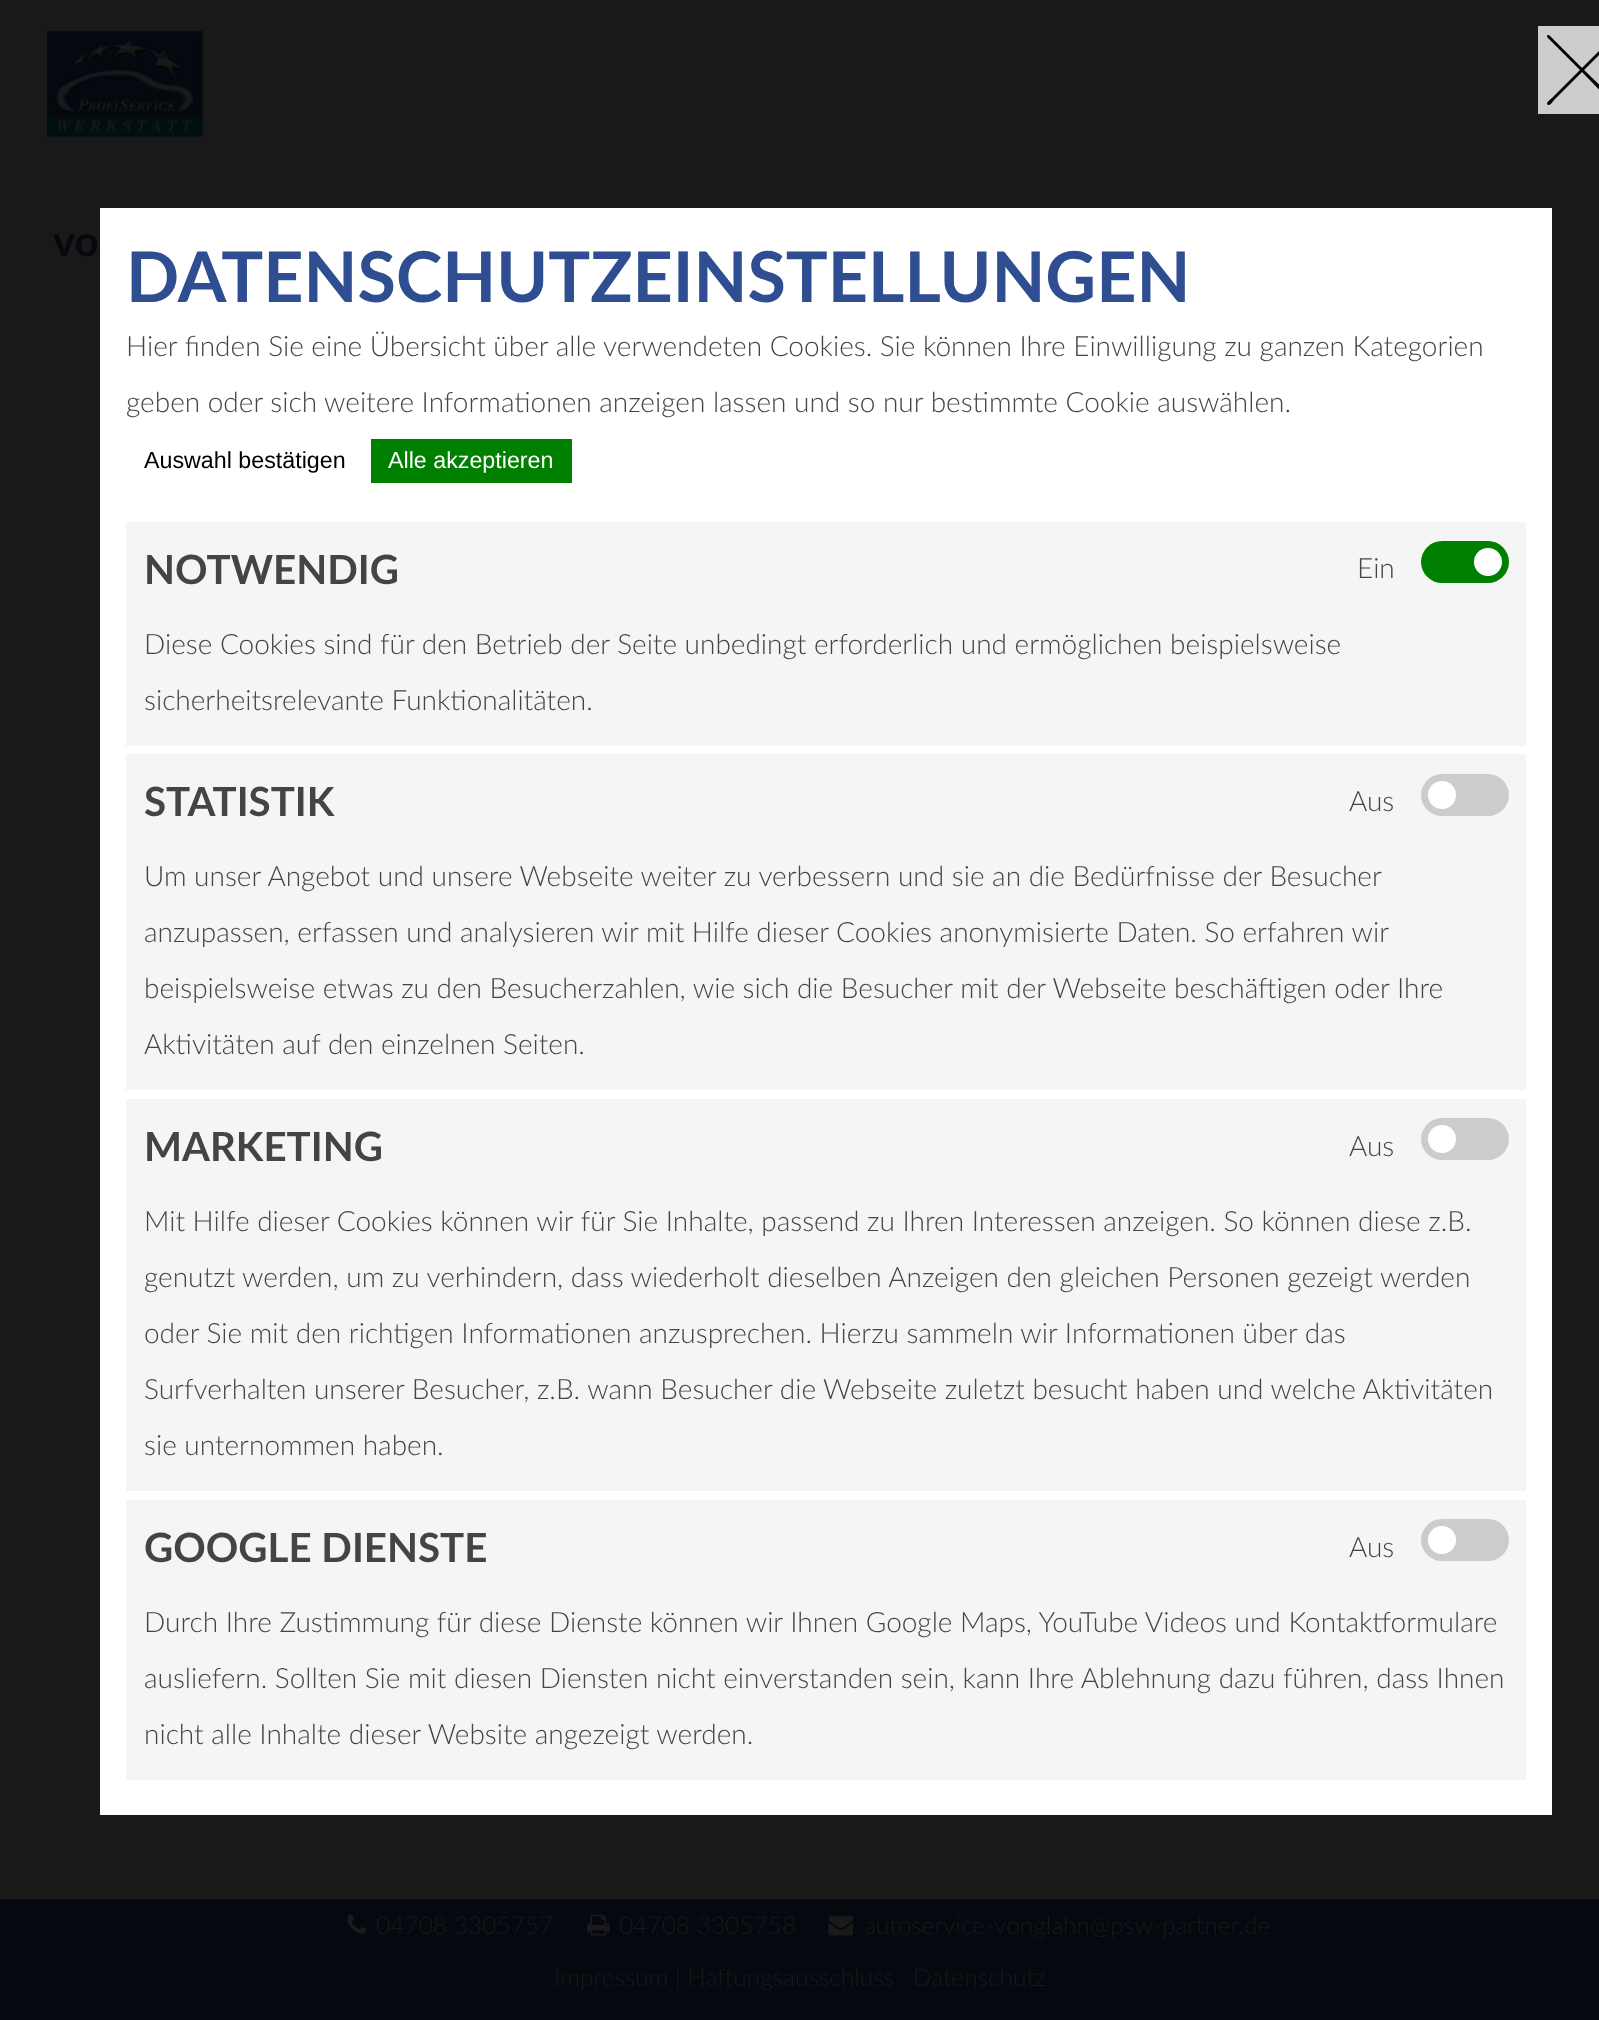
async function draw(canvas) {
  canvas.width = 1599
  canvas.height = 2020
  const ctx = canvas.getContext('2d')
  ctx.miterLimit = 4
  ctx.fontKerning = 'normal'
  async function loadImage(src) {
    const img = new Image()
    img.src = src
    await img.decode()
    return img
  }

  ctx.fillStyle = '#191919'
  ctx.fillRect(0, 0, 1599, 2020)
  ctx.drawImage(await loadImage('image0.png'), 47, 31, 157, 106)
  ctx.font = 'bold 42px Lato'
  ctx.fillStyle = '#05080e'
  ctx.fillText('vo', 53, 256)
  ctx.fillRect(0, 1899, 1599, 121)
  ctx.drawImage(await loadImage('image1.png'), 347, 1914, 20, 20)
  ctx.font = '300 24.5px Lato'
  ctx.fillStyle = '#191919'
  ctx.fillText('04708 3305757', 376, 1934)
  ctx.drawImage(await loadImage('image2.png'), 587, 1914, 23, 22)
  ctx.fillText('04708 3305758', 619, 1934)
  ctx.drawImage(await loadImage('image3.png'), 828, 1916, 25, 20)
  ctx.fillText('autoservice-vonglahn@psw-partner.de', 864, 1934)
  ctx.fillText('Impressum | Haftungsausschluss', 554, 1986)
  ctx.fillText('Datenschutz', 913, 1986)
  ctx.fillStyle = '#ccc'
  ctx.fillRect(1538, 26, 61, 88)
  ctx.fillStyle = '#000'
  ctx.beginPath()
  ctx.moveTo(1584, 70)
  ctx.lineTo(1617, 37)
  ctx.lineTo(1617, 36)
  ctx.bezierCurveTo(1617, 35, 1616, 35, 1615, 35)
  ctx.lineTo(1582, 68)
  ctx.lineTo(1549, 35)
  ctx.lineTo(1548, 35)
  ctx.bezierCurveTo(1547, 35, 1547, 36, 1547, 37)
  ctx.lineTo(1580, 70)
  ctx.lineTo(1553, 97)
  ctx.bezierCurveTo(1550, 100, 1545, 103, 1548, 105)
  ctx.bezierCurveTo(1550, 106, 1554, 100, 1555, 99)
  ctx.lineTo(1582, 72)
  ctx.lineTo(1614, 105)
  ctx.bezierCurveTo(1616, 106, 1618, 104, 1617, 102)
  ctx.closePath()
  ctx.fill()
  ctx.fillStyle = '#fff'
  ctx.fillRect(100, 208, 1452, 1607)
  ctx.font = 'bold 70px Lato'
  ctx.fillStyle = '#2f4e91'
  ctx.fillText('DATENSCHUTZEINSTELLUNGEN', 126, 302)
  ctx.font = '300 28px Lato'
  ctx.fillStyle = '#444'
  ctx.fillText('Hier finden Sie eine Übersicht über alle verwendeten Cookies. Sie können Ihre Einwilligung zu ganzen Kategorien', 126, 356)
  ctx.fillText('geben oder sich weitere Informationen anzeigen lassen und so nur bestimmte Cookie auswählen.', 126, 412)
  ctx.font = '23.25px Liberation Sans'
  ctx.fillStyle = '#000'
  ctx.fillText('Auswahl bestätigen', 144, 468)
  ctx.fillStyle = '#008000'
  ctx.fillRect(371, 439, 201, 44)
  ctx.fillStyle = '#fff'
  ctx.fillText('Alle akzeptieren', 388, 468)
  ctx.fillStyle = '#f5f5f5'
  ctx.fillRect(126, 522, 1400, 224)
  ctx.font = 'bold 40.25px Lato'
  ctx.fillStyle = '#444'
  ctx.fillText('NOTWENDIG', 144, 584)
  ctx.font = '300 28px Lato'
  ctx.fillText('Ein', 1357, 578)
  ctx.fillStyle = '#008000'
  ctx.beginPath()
  ctx.roundRect(1421, 541, 88, 42, 21)
  ctx.fill()
  ctx.fillStyle = '#fff'
  ctx.beginPath()
  ctx.arc(1488, 562, 14, 0, 2 * Math.PI)
  ctx.fill()
  ctx.fillStyle = '#444'
  ctx.fillText('Diese Cookies sind für den Betrieb der Seite unbedingt erforderlich und ermöglichen beispielsweise', 144, 654)
  ctx.fillText('sicherheitsrelevante Funktionalitäten.', 144, 710)
  ctx.fillStyle = '#f5f5f5'
  ctx.fillRect(126, 754, 1400, 336)
  ctx.font = 'bold 40.25px Lato'
  ctx.fillStyle = '#444'
  ctx.fillText('STATISTIK', 144, 816)
  ctx.font = '300 28px Lato'
  ctx.fillText('Aus', 1349, 811)
  ctx.fillStyle = '#ccc'
  ctx.beginPath()
  ctx.roundRect(1421, 774, 88, 42, 21)
  ctx.fill()
  ctx.fillStyle = '#fff'
  ctx.beginPath()
  ctx.arc(1442, 795, 14, 0, 2 * Math.PI)
  ctx.fill()
  ctx.fillStyle = '#444'
  ctx.fillText('Um unser Angebot und unsere Webseite weiter zu verbessern und sie an die Bedürfnisse der Besucher', 144, 886)
  ctx.fillText('anzupassen, erfassen und analysieren wir mit Hilfe dieser Cookies anonymisierte Daten. So erfahren wir', 144, 942)
  ctx.fillText('beispielsweise etwas zu den Besucherzahlen, wie sich die Besucher mit der Webseite beschäftigen oder Ihre', 144, 998)
  ctx.fillText('Aktivitäten auf den einzelnen Seiten.', 144, 1054)
  ctx.fillStyle = '#f5f5f5'
  ctx.fillRect(126, 1099, 1400, 392)
  ctx.font = 'bold 40.25px Lato'
  ctx.fillStyle = '#444'
  ctx.fillText('MARKETING', 144, 1161)
  ctx.font = '300 28px Lato'
  ctx.fillText('Aus', 1349, 1156)
  ctx.fillStyle = '#ccc'
  ctx.beginPath()
  ctx.roundRect(1421, 1118, 88, 42, 21)
  ctx.fill()
  ctx.fillStyle = '#fff'
  ctx.beginPath()
  ctx.arc(1442, 1139, 14, 0, 2 * Math.PI)
  ctx.fill()
  ctx.fillStyle = '#444'
  ctx.fillText('Mit Hilfe dieser Cookies können wir für Sie Inhalte, passend zu Ihren Interessen anzeigen. So können diese z.B.', 144, 1231)
  ctx.fillText('genutzt werden, um zu verhindern, dass wiederholt dieselben Anzeigen den gleichen Personen gezeigt werden', 144, 1287)
  ctx.fillText('oder Sie mit den richtigen Informationen anzusprechen. Hierzu sammeln wir Informationen über das', 144, 1343)
  ctx.fillText('Surfverhalten unserer Besucher, z.B. wann Besucher die Webseite zuletzt besucht haben und welche Aktivitäten', 144, 1399)
  ctx.fillText('sie unternommen haben.', 144, 1455)
  ctx.fillStyle = '#f5f5f5'
  ctx.fillRect(126, 1500, 1400, 280)
  ctx.font = 'bold 40.25px Lato'
  ctx.fillStyle = '#444'
  ctx.fillText('GOOGLE DIENSTE', 144, 1562)
  ctx.font = '300 28px Lato'
  ctx.fillText('Aus', 1349, 1557)
  ctx.fillStyle = '#ccc'
  ctx.beginPath()
  ctx.roundRect(1421, 1519, 88, 42, 21)
  ctx.fill()
  ctx.fillStyle = '#fff'
  ctx.beginPath()
  ctx.arc(1442, 1540, 14, 0, 2 * Math.PI)
  ctx.fill()
  ctx.fillStyle = '#444'
  ctx.fillText('Durch Ihre Zustimmung für diese Dienste können wir Ihnen Google Maps, YouTube Videos und Kontaktformulare', 144, 1632)
  ctx.fillText('ausliefern. Sollten Sie mit diesen Diensten nicht einverstanden sein, kann Ihre Ablehnung dazu führen, dass Ihnen', 144, 1688)
  ctx.fillText('nicht alle Inhalte dieser Website angezeigt werden.', 144, 1744)
}

draw(document.querySelector('canvas'))
